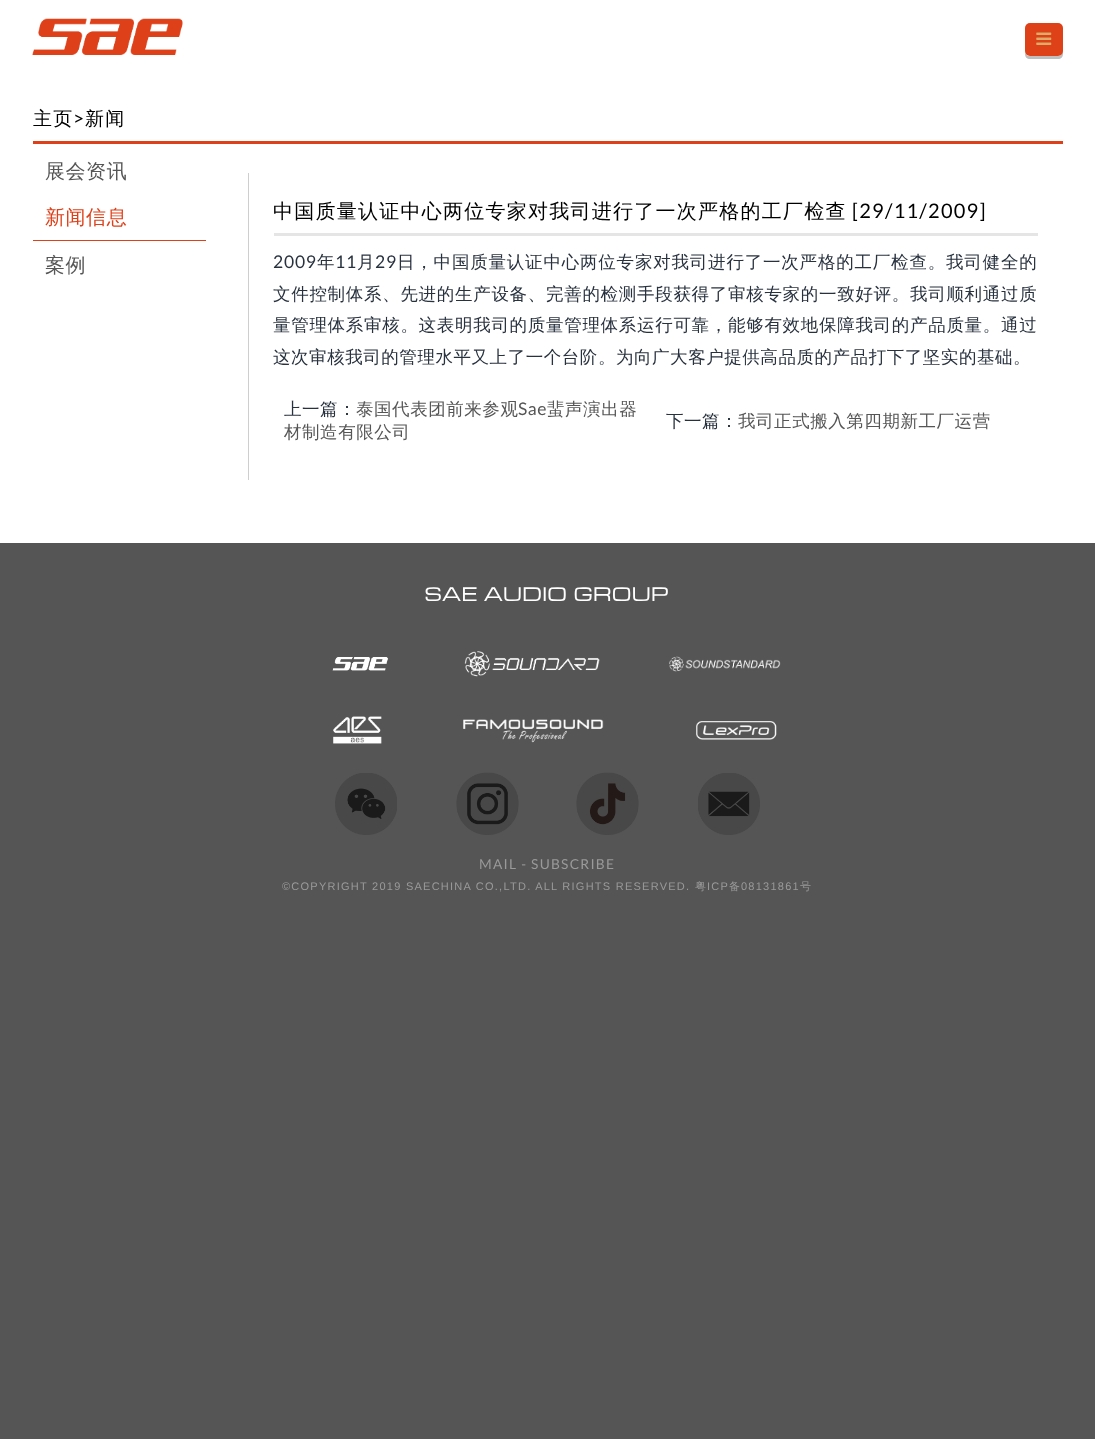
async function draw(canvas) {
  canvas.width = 1095
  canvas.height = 1439
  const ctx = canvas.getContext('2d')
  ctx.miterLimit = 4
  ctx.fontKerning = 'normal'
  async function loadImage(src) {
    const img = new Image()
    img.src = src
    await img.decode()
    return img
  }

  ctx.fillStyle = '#555'
  ctx.fillRect(0, 0, 1095, 1439)
  ctx.fillStyle = '#fff'
  ctx.fillRect(0, 0, 1095, 543)
  ctx.drawImage(await loadImage('image0.png'), 32, 18, 151, 37)
  ctx.fillStyle = '#bfbfbf'
  ctx.beginPath()
  ctx.moveTo(1025, 51)
  ctx.lineTo(1025, 54)
  ctx.bezierCurveTo(1025, 57, 1027, 59, 1030, 59)
  ctx.lineTo(1058, 59)
  ctx.bezierCurveTo(1061, 59, 1063, 57, 1063, 54)
  ctx.lineTo(1063, 30)
  ctx.lineTo(1062.5, 28)
  ctx.lineTo(1062.5, 51)
  ctx.bezierCurveTo(1062.5, 54, 1060.5, 56, 1057.5, 56)
  ctx.lineTo(1030, 56)
  ctx.bezierCurveTo(1027, 56, 1025, 54, 1025, 51)
  ctx.closePath()
  ctx.fill()
  ctx.fillStyle = '#de4117'
  ctx.beginPath()
  ctx.roundRect(1025, 23, 38, 33, 5)
  ctx.fill()
  ctx.drawImage(await loadImage('image1.png'), 1036, 32, 16, 13)
  ctx.letterSpacing = '1.25px'
  ctx.font = '500 19px WenQuanYi Zen Hei'
  ctx.fillStyle = '#000'
  ctx.fillText('主页', 33, 125)
  ctx.font = '19px Lato'
  ctx.fillText('>', 73, 125)
  ctx.font = '500 19px WenQuanYi Zen Hei'
  ctx.fillText('新闻', 85, 125)
  ctx.fillStyle = '#de411a'
  ctx.fillRect(33, 141, 1030, 3)
  ctx.letterSpacing = '0.55px'
  ctx.font = '500 20px WenQuanYi Zen Hei'
  ctx.fillStyle = '#565656'
  ctx.fillText('展会资讯', 45, 178)
  ctx.fillStyle = '#de411a'
  ctx.fillRect(33, 240, 173, 1)
  ctx.fillText('新闻信息', 45, 224)
  ctx.fillStyle = '#565656'
  ctx.fillText('案例', 45, 272)
  ctx.fillStyle = '#cecece'
  ctx.fillRect(248, 173, 1, 307)
  ctx.letterSpacing = '1.25px'
  ctx.fillStyle = '#000'
  ctx.fillText('中国质量认证中心两位专家对我司进行了一次严格的工厂检查', 273, 218)
  ctx.font = '20px Lato'
  ctx.fillText('[29/11/2009]', 852, 218)
  ctx.fillStyle = '#e5e5e5'
  ctx.fillRect(274, 233, 764, 3)
  ctx.letterSpacing = '0.8px'
  ctx.font = '17.5px Lato'
  ctx.fillStyle = '#28323f'
  ctx.fillText('2009', 273, 268)
  ctx.font = '500 17.5px WenQuanYi Zen Hei'
  ctx.fillText('年', 317, 268)
  ctx.font = '17.5px Lato'
  ctx.fillText('11', 335, 268)
  ctx.font = '500 17.5px WenQuanYi Zen Hei'
  ctx.fillText('月', 357, 268)
  ctx.font = '17.5px Lato'
  ctx.fillText('29', 375, 268)
  ctx.font = '500 17.5px WenQuanYi Zen Hei'
  ctx.fillText('日，中国质量认证中心两位专家对我司进行了一次严格的工厂检查。我司健全的', 397, 268)
  ctx.letterSpacing = '0.7px'
  ctx.fillText('文件控制体系、先进的生产设备、完善的检测手段获得了审核专家的一致好评。我司顺利通过质', 273, 300)
  ctx.fillText('量管理体系审核。这表明我司的质量管理体系运行可靠，能够有效地保障我司的产品质量。通过', 273, 331)
  ctx.letterSpacing = '0.55px'
  ctx.fillText('这次审核我司的管理水平又上了一个台阶。为向广大客户提供高品质的产品打下了坚实的基础。', 273, 363)
  ctx.fillText('上一篇：', 284, 415)
  ctx.fillStyle = '#565656'
  ctx.fillText('泰国代表团前来参观', 356, 415)
  ctx.font = '17.5px Lato'
  ctx.fillText('Sae', 518, 415)
  ctx.font = '500 17.5px WenQuanYi Zen Hei'
  ctx.fillText('蜚声演出器', 547, 415)
  ctx.fillText('材制造有限公司', 284, 438)
  ctx.fillStyle = '#28323f'
  ctx.fillText('下一篇：', 666, 427)
  ctx.fillStyle = '#565656'
  ctx.fillText('我司正式搬入第四期新工厂运营', 738, 427)
  ctx.letterSpacing = '1.25px'
  ctx.font = '20.6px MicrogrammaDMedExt'
  ctx.fillStyle = '#fff'
  ctx.fillText('SAE AUDIO GROUP', 425, 601)
  ctx.drawImage(await loadImage('image2.png'), 332, 657, 57, 14)
  ctx.drawImage(await loadImage('image3.png'), 464, 651, 136, 26)
  ctx.drawImage(await loadImage('image4.png'), 669, 656, 112, 16)
  ctx.drawImage(await loadImage('image5.png'), 333, 716, 49, 28)
  ctx.drawImage(await loadImage('image6.png'), 463, 719, 141, 24)
  ctx.drawImage(await loadImage('image7.png'), 696, 721, 81, 19)
  ctx.drawImage(await loadImage('image8.png'), 335, 773, 62, 62)
  ctx.drawImage(await loadImage('image9.png'), 456, 772, 63, 63)
  ctx.drawImage(await loadImage('image10.png'), 576, 772, 63, 63)
  ctx.drawImage(await loadImage('image11.png'), 698, 773, 62, 62)
  ctx.font = '13.75px Lato'
  ctx.fillStyle = '#9a9a9a'
  ctx.fillText('MAIL - SUBSCRIBE', 479, 869)
  ctx.font = '11px Liberation Sans'
  ctx.fillText('©COPYRIGHT 2019 SAECHINA CO.,LTD. ALL RIGHTS RESERVED.', 282, 890)
  ctx.font = '500 11px WenQuanYi Zen Hei'
  ctx.fillText('粤', 695, 890)
  ctx.font = '11px Liberation Sans'
  ctx.fillText('ICP', 707, 890)
  ctx.font = '500 11px WenQuanYi Zen Hei'
  ctx.fillText('备', 729, 890)
  ctx.font = '11px Liberation Sans'
  ctx.fillText('08131861', 741, 890)
  ctx.font = '500 11px WenQuanYi Zen Hei'
  ctx.fillText('号', 800, 890)
}

draw(document.querySelector('canvas'))
